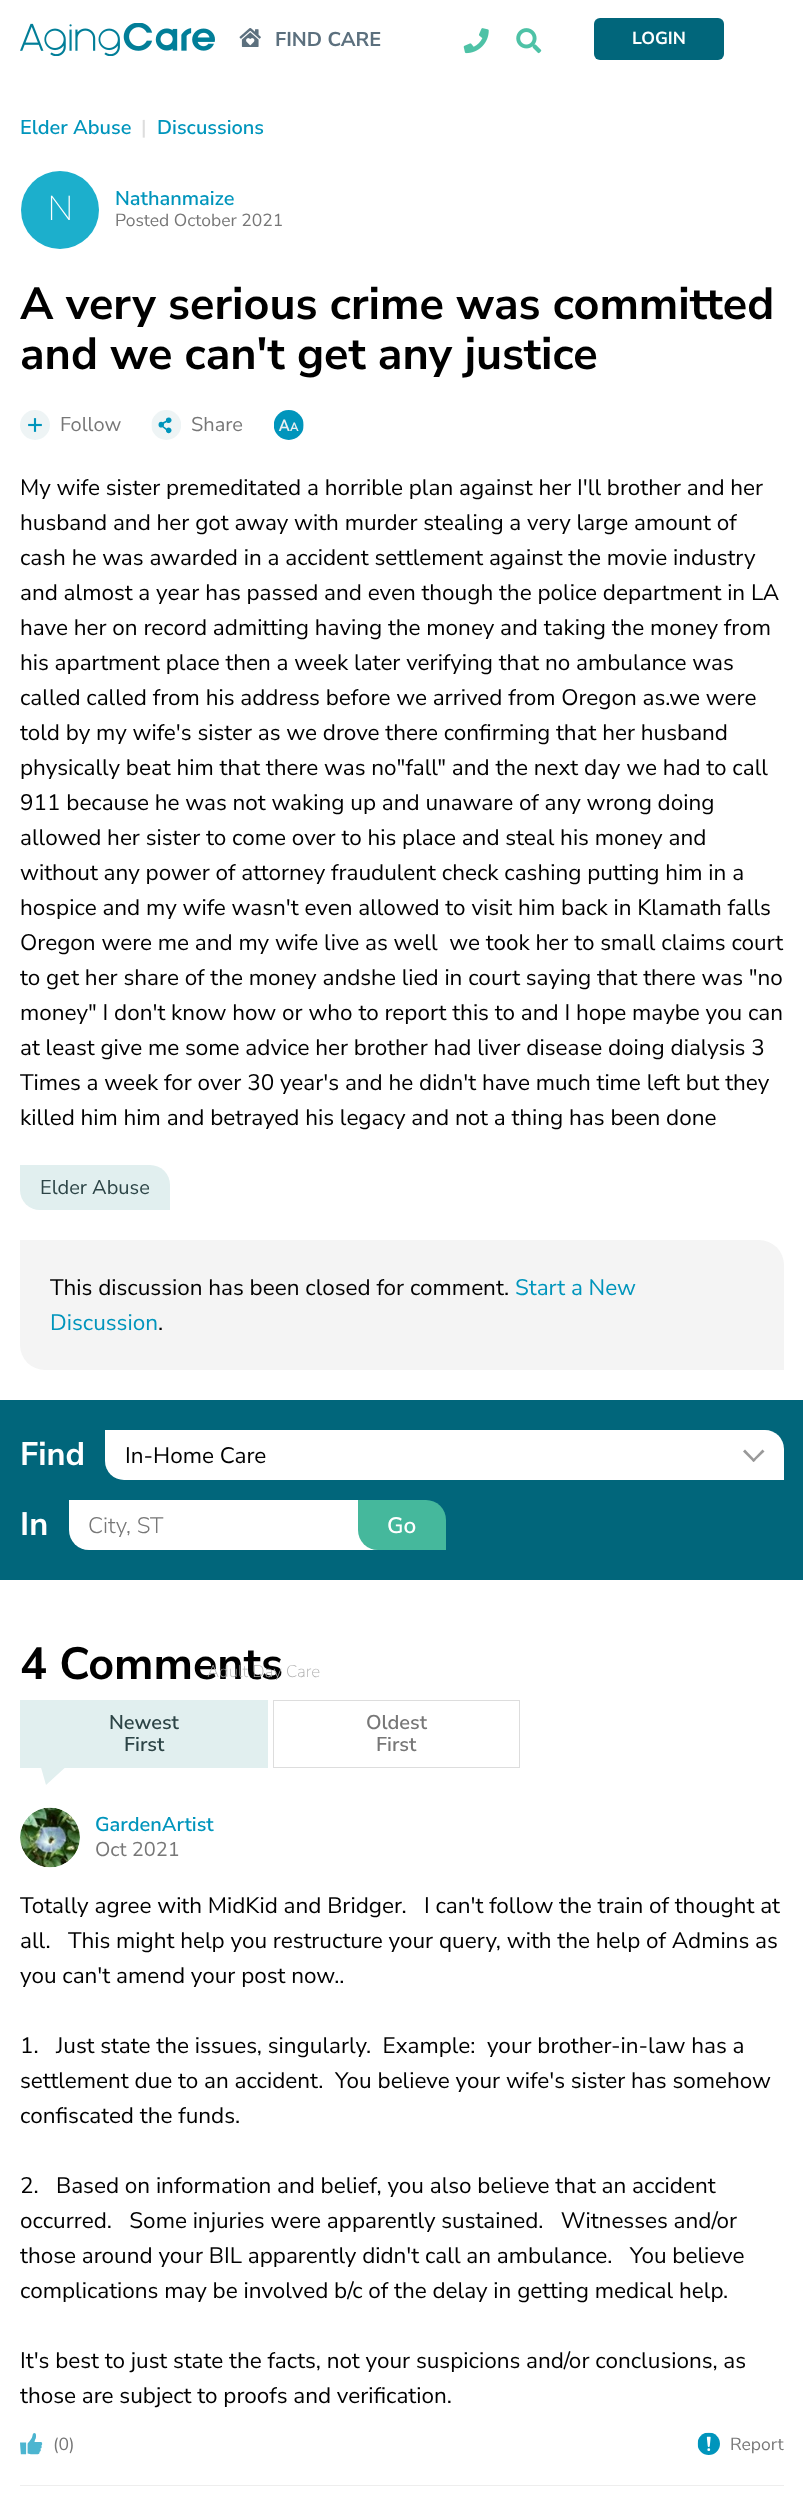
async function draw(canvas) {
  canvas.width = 803
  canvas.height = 2510
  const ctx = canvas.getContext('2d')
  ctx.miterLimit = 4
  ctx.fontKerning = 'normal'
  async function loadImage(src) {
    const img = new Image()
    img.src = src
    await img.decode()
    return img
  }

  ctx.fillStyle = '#fff'
  ctx.fillRect(0, 0, 803, 2510)
  ctx.drawImage(await loadImage('image0.png'), 20, 23, 195, 33)
  ctx.drawImage(await loadImage('image1.png'), 239, 28, 22, 19)
  ctx.font = 'bold 20px Nunito Sans'
  ctx.fillStyle = '#5c707e'
  ctx.fillText('FIND CARE', 275, 46)
  ctx.drawImage(await loadImage('image2.png'), 463, 28, 26, 26)
  ctx.drawImage(await loadImage('image3.png'), 516, 28, 26, 26)
  ctx.fillStyle = '#01667b'
  ctx.beginPath()
  ctx.roundRect(594, 18, 130, 42, 6)
  ctx.fill()
  ctx.font = 'bold 17.5px Nunito Sans'
  ctx.fillStyle = '#fff'
  ctx.fillText('LOGIN', 632, 44)
  ctx.font = '600 20px Nunito Sans'
  ctx.fillStyle = '#0095bc'
  ctx.fillText('Elder Abuse', 20, 134)
  ctx.fillStyle = '#ddd'
  ctx.fillText('|', 141, 134)
  ctx.fillStyle = '#0095bc'
  ctx.fillText('Discussions', 157, 134)
  ctx.fillStyle = '#1cafcc'
  ctx.beginPath()
  ctx.arc(60, 210, 39, 0, 2 * Math.PI)
  ctx.fill()
  ctx.font = '300 32.5px "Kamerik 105"'
  ctx.fillStyle = '#fff'
  ctx.fillText('N', 49, 220)
  ctx.font = '600 20px Nunito Sans'
  ctx.fillStyle = '#0095bc'
  ctx.fillText('Nathanmaize', 115, 205)
  ctx.font = '17.5px Nunito Sans'
  ctx.fillStyle = '#777'
  ctx.fillText('Posted October 2021', 115, 226)
  ctx.font = 'bold 45px Nunito Sans'
  ctx.fillStyle = '#000'
  ctx.fillText('A very serious crime was committed', 20, 319)
  ctx.fillText('and we can\'t get any justice', 20, 369)
  ctx.drawImage(await loadImage('image4.png'), 20, 410, 30, 30)
  ctx.font = '20px Nunito Sans'
  ctx.fillStyle = '#777'
  ctx.fillText('Follow', 60, 431)
  ctx.drawImage(await loadImage('image5.png'), 151, 410, 30, 30)
  ctx.fillText('Share', 191, 431)
  ctx.drawImage(await loadImage('image6.png'), 274, 410, 30, 30)
  ctx.font = '22.5px Nunito Sans'
  ctx.fillStyle = '#000'
  ctx.fillText('My wife sister premeditated a horrible plan against her I\'ll brother and her', 20, 495)
  ctx.fillText('husband and her got away with murder stealing a very large amount of', 20, 530)
  ctx.fillText('cash he was awarded in a accident settlement against the movie industry', 20, 565)
  ctx.fillText('and almost a year has passed and even though the police department in LA', 20, 600)
  ctx.fillText('have her on record admitting having the money and taking the money from', 20, 635)
  ctx.fillText('his apartment place then a week later verifying that no ambulance was', 20, 670)
  ctx.fillText('called called from his address before we arrived from Oregon as.we were', 20, 705)
  ctx.fillText('told by my wife\'s sister as we drove there confirming that her husband', 20, 740)
  ctx.fillText('physically beat him that there was no"fall" and the next day we had to call', 20, 775)
  ctx.fillText('911 because he was not waking up and unaware of any wrong doing', 20, 810)
  ctx.fillText('allowed her sister to come over to his place and steal his money and', 20, 845)
  ctx.fillText('without any power of attorney fraudulent check cashing putting him in a', 20, 880)
  ctx.fillText('hospice and my wife wasn\'t even allowed to visit him back in Klamath falls', 20, 915)
  ctx.fillText('Oregon were me and my wife live as well  we took her to small claims court', 20, 950)
  ctx.fillText('to get her share of the money andshe lied in court saying that there was "no', 20, 985)
  ctx.fillText('money" I don\'t know how or who to report this to and I hope maybe you can', 20, 1020)
  ctx.fillText('at least give me some advice her brother had liver disease doing dialysis 3', 20, 1055)
  ctx.fillText('Times a week for over 30 year\'s and he didn\'t have much time left but they', 20, 1090)
  ctx.fillText('killed him him and betrayed his legacy and not a thing has been done', 20, 1125)
  ctx.fillStyle = '#e1efef'
  ctx.beginPath()
  ctx.roundRect(20, 1165, 150, 45, [0, 20, 0, 20])
  ctx.fill()
  ctx.font = '20px Nunito Sans'
  ctx.fillStyle = '#2c4446'
  ctx.fillText('Elder Abuse', 40, 1194)
  ctx.fillStyle = '#f4f4f4'
  ctx.beginPath()
  ctx.roundRect(20, 1240, 764, 130, [0, 25, 0, 25])
  ctx.fill()
  ctx.font = '22.5px Nunito Sans'
  ctx.fillStyle = '#000'
  ctx.fillText('This discussion has been closed for comment.', 50, 1295)
  ctx.fillStyle = '#0095bc'
  ctx.fillText('Start a New', 515, 1295)
  ctx.fillText('Discussion', 50, 1330)
  ctx.fillStyle = '#000'
  ctx.fillText('.', 158, 1330)
  ctx.fillStyle = '#01667b'
  ctx.fillRect(0, 1400, 803, 180)
  ctx.font = 'bold 32.5px Nunito Sans'
  ctx.fillStyle = '#fff'
  ctx.fillText('Find', 20, 1465)
  ctx.beginPath()
  ctx.roundRect(105, 1430, 679, 50, [0, 19, 0, 19])
  ctx.fill()
  ctx.font = '22.5px Nunito Sans'
  ctx.fillStyle = '#000'
  ctx.fillText('In-Home Care', 125, 1463)
  ctx.fillStyle = '#999'
  ctx.beginPath()
  ctx.moveTo(762.5, 1449.5)
  ctx.lineTo(764.5, 1451.5)
  ctx.lineTo(753.5, 1462)
  ctx.lineTo(752, 1460.5)
  ctx.closePath()
  ctx.fill()
  ctx.beginPath()
  ctx.moveTo(745, 1449.5)
  ctx.lineTo(755.5, 1460.5)
  ctx.lineTo(753.5, 1462)
  ctx.lineTo(743, 1451.5)
  ctx.closePath()
  ctx.fill()
  ctx.font = 'bold 45px Nunito Sans'
  ctx.fillStyle = '#000'
  ctx.fillText('4 Comments', 20, 1679)
  ctx.font = '200 17px Nunito Sans'
  ctx.fillStyle = '#b0b0b0'
  ctx.fillText('Adult Day Care', 207, 1677)
  ctx.font = 'bold 32.5px Nunito Sans'
  ctx.fillStyle = '#fff'
  ctx.fillText('In', 20, 1535)
  ctx.beginPath()
  ctx.roundRect(69, 1500, 339, 50, [0, 20, 0, 20])
  ctx.fill()
  ctx.font = '300 22.5px Nunito Sans'
  ctx.fillStyle = '#777'
  ctx.fillText('City, ST', 88, 1533)
  ctx.fillStyle = '#45b89c'
  ctx.beginPath()
  ctx.roundRect(358, 1500, 88, 50, [0, 20, 0, 20])
  ctx.fill()
  ctx.font = '600 22.5px Nunito Sans'
  ctx.fillStyle = '#fff'
  ctx.fillText('Go', 387, 1533)
  ctx.fillStyle = '#e1efef'
  ctx.fillRect(20, 1700, 248, 68)
  ctx.font = '600 20px Nunito Sans'
  ctx.fillStyle = '#2c4446'
  ctx.fillText('Newest', 109, 1729)
  ctx.fillText('First', 124, 1751)
  ctx.fillStyle = '#e1efef'
  ctx.beginPath()
  ctx.moveTo(40, 1764)
  ctx.lineTo(69, 1764)
  ctx.lineTo(46, 1785)
  ctx.closePath()
  ctx.fill()
  ctx.strokeStyle = '#ddd'
  ctx.strokeRect(273.5, 1700.5, 246, 67)
  ctx.fillStyle = '#777'
  ctx.fillText('Oldest', 366, 1729)
  ctx.fillText('First', 376, 1751)
  ctx.drawImage(await loadImage('image7.png'), 20, 1807, 60, 61)
  ctx.fillStyle = '#0095bc'
  ctx.fillText('GardenArtist', 95, 1831)
  ctx.font = '20px Nunito Sans'
  ctx.fillStyle = '#777'
  ctx.fillText('Oct 2021', 95, 1856)
  ctx.font = '22.5px Nunito Sans'
  ctx.fillStyle = '#000'
  ctx.fillText('Totally agree with MidKid and Bridger.   I can\'t follow the train of thought at', 20, 1913)
  ctx.fillText('all.   This might help you restructure your query, with the help of Admins as', 20, 1948)
  ctx.fillText('you can\'t amend your post now..', 20, 1983)
  ctx.fillText('1.   Just state the issues, singularly.  Example:  your brother-in-law has a', 20, 2053)
  ctx.fillText('settlement due to an accident.  You believe your wife\'s sister has somehow', 20, 2088)
  ctx.fillText('confiscated the funds.', 20, 2123)
  ctx.fillText('2.   Based on information and belief, you also believe that an accident', 20, 2193)
  ctx.fillText('occurred.   Some injuries were apparently sustained.   Witnesses and/or', 20, 2228)
  ctx.fillText('those around your BIL apparently didn\'t call an ambulance.   You believe', 20, 2263)
  ctx.fillText('complications may be involved b/c of the delay in getting medical help.', 20, 2298)
  ctx.fillText('It\'s best to just state the facts, not your suspicions and/or conclusions, as', 20, 2368)
  ctx.fillText('those are subject to proofs and verification.', 20, 2403)
  ctx.drawImage(await loadImage('image8.png'), 20, 2433, 23, 22)
  ctx.font = '17.5px Nunito Sans'
  ctx.fillStyle = '#777'
  ctx.fillText('(0)', 53, 2450)
  ctx.drawImage(await loadImage('image9.png'), 697, 2432, 23, 23)
  ctx.fillText('Report', 730, 2450)
  ctx.fillStyle = '#eee'
  ctx.fillRect(20, 2485, 764, 1)
}

draw(document.querySelector('canvas'))
